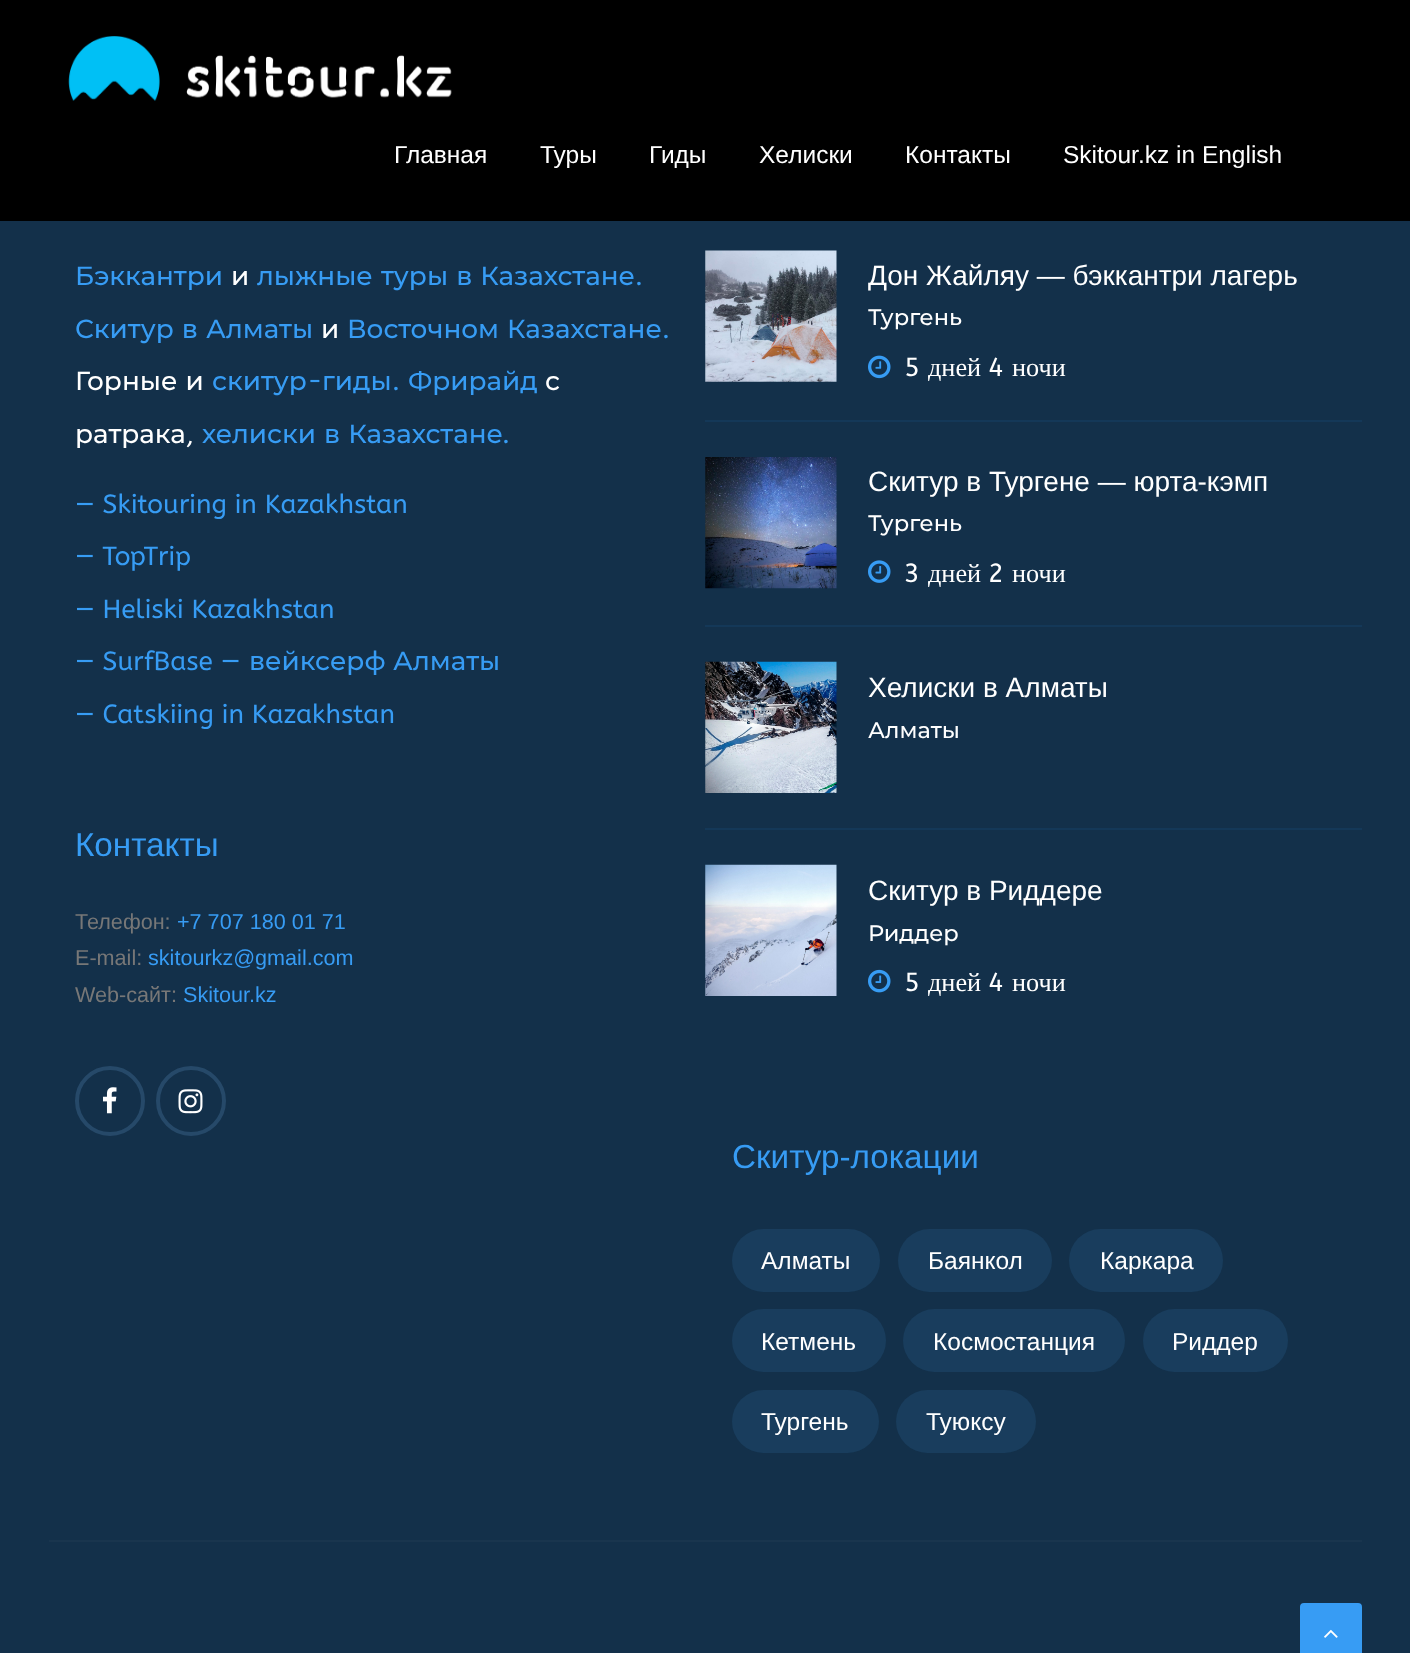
async function draw(canvas) {
  canvas.width = 1410
  canvas.height = 1653
  const ctx = canvas.getContext('2d')
  ctx.miterLimit = 4
  ctx.fontKerning = 'normal'
  async function loadImage(src) {
    const img = new Image()
    img.src = src
    await img.decode()
    return img
  }

  ctx.fillStyle = '#13304a'
  ctx.fillRect(0, 0, 1410, 1653)
  ctx.fillStyle = '#000'
  ctx.fillRect(0, 0, 1410, 221)
  ctx.drawImage(await loadImage('image0.png'), 68, 36, 384, 65)
  ctx.font = '24.5px Liberation Sans'
  ctx.fillStyle = '#fff'
  ctx.fillText('Главная', 394, 163)
  ctx.fillText('Туры', 540, 163)
  ctx.fillText('Гиды', 649, 163)
  ctx.fillText('Хелиски', 759, 163)
  ctx.fillText('Контакты', 905, 163)
  ctx.fillText('Skitour.kz in English', 1063, 163)
  ctx.font = '500 26.25px Montserrat'
  ctx.fillStyle = '#379cf4'
  ctx.fillText('Бэккантри', 75, 285)
  ctx.fillStyle = '#fff'
  ctx.fillText('и', 231, 285)
  ctx.wordSpacing = '1px'
  ctx.fillStyle = '#379cf4'
  ctx.fillText('лыжные туры в Казахстане', 257, 285)
  ctx.wordSpacing = '0px'
  ctx.font = '26.25px ABeeZee'
  ctx.fillText('.', 635, 285)
  ctx.wordSpacing = '1px'
  ctx.font = '500 26.25px Montserrat'
  ctx.fillText('Скитур в Алматы', 75, 338)
  ctx.wordSpacing = '0px'
  ctx.fillStyle = '#fff'
  ctx.fillText('и', 321, 338)
  ctx.wordSpacing = '1px'
  ctx.fillStyle = '#379cf4'
  ctx.fillText('Восточном Казахстане', 347, 338)
  ctx.wordSpacing = '0px'
  ctx.font = '26.25px ABeeZee'
  ctx.fillText('.', 662, 338)
  ctx.wordSpacing = '1px'
  ctx.font = '500 26.25px Montserrat'
  ctx.fillStyle = '#fff'
  ctx.fillText('Горные и', 75, 390)
  ctx.wordSpacing = '0px'
  ctx.fillStyle = '#379cf4'
  ctx.fillText('скитур', 212, 390)
  ctx.font = '26.25px ABeeZee'
  ctx.fillText('-', 307, 390)
  ctx.font = '500 26.25px Montserrat'
  ctx.fillText('гиды', 322, 390)
  ctx.fillText('Фрирайд', 408, 390)
  ctx.fillStyle = '#fff'
  ctx.fillText('с', 545, 390)
  ctx.font = '26.25px ABeeZee'
  ctx.fillStyle = '#379cf4'
  ctx.fillText('.', 392, 390)
  ctx.font = '500 26.25px Montserrat'
  ctx.fillStyle = '#fff'
  ctx.fillText('ратрака', 75, 443)
  ctx.font = '26.25px ABeeZee'
  ctx.fillText(',', 186, 443)
  ctx.wordSpacing = '1px'
  ctx.font = '500 26.25px Montserrat'
  ctx.fillStyle = '#379cf4'
  ctx.fillText('хелиски в Казахстане', 202, 443)
  ctx.wordSpacing = '0px'
  ctx.font = '26.25px ABeeZee'
  ctx.fillText('.', 502, 443)
  ctx.fillText('— Skitouring in Kazakhstan', 75, 513)
  ctx.fillText('— TopTrip', 75, 565)
  ctx.fillText('— Heliski Kazakhstan', 75, 618)
  ctx.fillText('— SurfBase —', 75, 670)
  ctx.font = '500 26.25px Montserrat'
  ctx.fillText('вейксерф', 249, 670)
  ctx.fillText('Алматы', 393, 670)
  ctx.font = '26.25px ABeeZee'
  ctx.fillText('— Catskiing in Kazakhstan', 75, 723)
  ctx.font = '33.25px Liberation Sans'
  ctx.fillText('Контакты', 75, 856)
  ctx.font = '21.6px Liberation Sans'
  ctx.fillStyle = '#777'
  ctx.fillText('Телефон:', 75, 929)
  ctx.fillStyle = '#379cf4'
  ctx.fillText('+7 707 180 01 71', 177, 929)
  ctx.fillStyle = '#777'
  ctx.fillText('E-mail:', 75, 965)
  ctx.fillStyle = '#379cf4'
  ctx.fillText('skitourkz@gmail.com', 148, 965)
  ctx.fillStyle = '#777'
  ctx.fillText('Web-сайт:', 75, 1002)
  ctx.fillStyle = '#379cf4'
  ctx.fillText('Skitour.kz', 183, 1002)
  ctx.beginPath()
  ctx.arc(110, 1101, 33, 0, 2 * Math.PI)
  ctx.strokeStyle = '#264969'
  ctx.lineWidth = 4
  ctx.stroke()
  ctx.drawImage(await loadImage('image1.png'), 103, 1087, 14, 27)
  ctx.beginPath()
  ctx.arc(191, 1101, 33, 0, 2 * Math.PI)
  ctx.stroke()
  ctx.drawImage(await loadImage('image2.png'), 178, 1089, 25, 25)
  ctx.fillStyle = '#143858'
  ctx.fillRect(705, 420, 657, 2)
  ctx.drawImage(await loadImage('image3.png'), 705, 250, 132, 132)
  ctx.font = '28px Liberation Sans'
  ctx.fillStyle = '#fff'
  ctx.fillText('Дон Жайляу — бэккантри лагерь', 868, 285)
  ctx.font = '500 22.5px Montserrat'
  ctx.fillText('Тургень', 868, 325)
  ctx.drawImage(await loadImage('image4.png'), 868, 355, 23, 24)
  ctx.font = '26.25px ABeeZee'
  ctx.fillText('5', 904, 376)
  ctx.font = '26.25px Liberation Serif'
  ctx.fillText('дней', 928, 376)
  ctx.font = '26.25px ABeeZee'
  ctx.fillText('4', 988, 376)
  ctx.font = '26.25px Liberation Serif'
  ctx.fillText('ночи', 1012, 376)
  ctx.fillStyle = '#143858'
  ctx.fillRect(705, 625, 657, 2)
  ctx.drawImage(await loadImage('image5.png'), 705, 457, 132, 132)
  ctx.font = '28px Liberation Sans'
  ctx.fillStyle = '#fff'
  ctx.fillText('Скитур в Тургене — юрта-кэмп', 868, 491)
  ctx.font = '500 22.5px Montserrat'
  ctx.fillText('Тургень', 868, 531)
  ctx.drawImage(await loadImage('image6.png'), 868, 560, 23, 23)
  ctx.font = '26.25px ABeeZee'
  ctx.fillText('3', 904, 582)
  ctx.font = '26.25px Liberation Serif'
  ctx.fillText('дней', 928, 582)
  ctx.font = '26.25px ABeeZee'
  ctx.fillText('2', 988, 582)
  ctx.font = '26.25px Liberation Serif'
  ctx.fillText('ночи', 1012, 582)
  ctx.fillStyle = '#143858'
  ctx.fillRect(705, 828, 657, 2)
  ctx.drawImage(await loadImage('image7.png'), 705, 661, 132, 132)
  ctx.font = '28px Liberation Sans'
  ctx.fillStyle = '#fff'
  ctx.fillText('Хелиски в Алматы', 868, 697)
  ctx.font = '500 22.5px Montserrat'
  ctx.fillText('Алматы', 868, 738)
  ctx.drawImage(await loadImage('image8.png'), 705, 864, 132, 132)
  ctx.font = '28px Liberation Sans'
  ctx.fillText('Скитур в Риддере', 868, 900)
  ctx.font = '500 22.5px Montserrat'
  ctx.fillText('Риддер', 868, 941)
  ctx.drawImage(await loadImage('image9.png'), 868, 969, 23, 24)
  ctx.font = '26.25px ABeeZee'
  ctx.fillText('5', 904, 991)
  ctx.font = '26.25px Liberation Serif'
  ctx.fillText('дней', 928, 991)
  ctx.font = '26.25px ABeeZee'
  ctx.fillText('4', 988, 991)
  ctx.font = '26.25px Liberation Serif'
  ctx.fillText('ночи', 1012, 991)
  ctx.font = '33.25px Liberation Sans'
  ctx.fillStyle = '#379cf4'
  ctx.fillText('Скитур-локации', 732, 1168)
  ctx.fillStyle = '#193d5d'
  ctx.beginPath()
  ctx.roundRect(732, 1229, 148, 63, 31.5)
  ctx.fill()
  ctx.font = '24.5px Liberation Sans'
  ctx.fillStyle = '#fff'
  ctx.fillText('Алматы', 761, 1269)
  ctx.fillStyle = '#193d5d'
  ctx.beginPath()
  ctx.roundRect(898, 1229, 154, 63, 31.5)
  ctx.fill()
  ctx.fillStyle = '#fff'
  ctx.fillText('Баянкол', 928, 1269)
  ctx.fillStyle = '#193d5d'
  ctx.beginPath()
  ctx.roundRect(1069, 1229, 154, 63, 31.5)
  ctx.fill()
  ctx.fillStyle = '#fff'
  ctx.fillText('Каркара', 1100, 1269)
  ctx.fillStyle = '#193d5d'
  ctx.beginPath()
  ctx.roundRect(732, 1309, 154, 63, 31.5)
  ctx.fill()
  ctx.fillStyle = '#fff'
  ctx.fillText('Кетмень', 761, 1350)
  ctx.fillStyle = '#193d5d'
  ctx.beginPath()
  ctx.roundRect(903, 1309, 222, 63, 31.5)
  ctx.fill()
  ctx.fillStyle = '#fff'
  ctx.fillText('Космостанция', 933, 1350)
  ctx.fillStyle = '#193d5d'
  ctx.beginPath()
  ctx.roundRect(1143, 1309, 145, 63, 31.5)
  ctx.fill()
  ctx.fillStyle = '#fff'
  ctx.fillText('Риддер', 1172, 1350)
  ctx.fillStyle = '#193d5d'
  ctx.beginPath()
  ctx.roundRect(732, 1390, 147, 63, 31.5)
  ctx.fill()
  ctx.fillStyle = '#fff'
  ctx.fillText('Тургень', 761, 1430)
  ctx.fillStyle = '#193d5d'
  ctx.beginPath()
  ctx.roundRect(896, 1390, 140, 63, 31.5)
  ctx.fill()
  ctx.fillStyle = '#fff'
  ctx.fillText('Туюксу', 926, 1430)
  ctx.fillStyle = '#19354e'
  ctx.fillRect(49, 1540, 1313, 2)
  ctx.fillStyle = '#379cf4'
  ctx.beginPath()
  ctx.roundRect(1301, 1604, 60, 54, 3)
  ctx.fill()
  ctx.strokeStyle = '#379cf4'
  ctx.lineWidth = 2
  ctx.stroke()
  ctx.drawImage(await loadImage('image10.png'), 1324, 1629, 14, 9)
}

draw(document.querySelector('canvas'))
